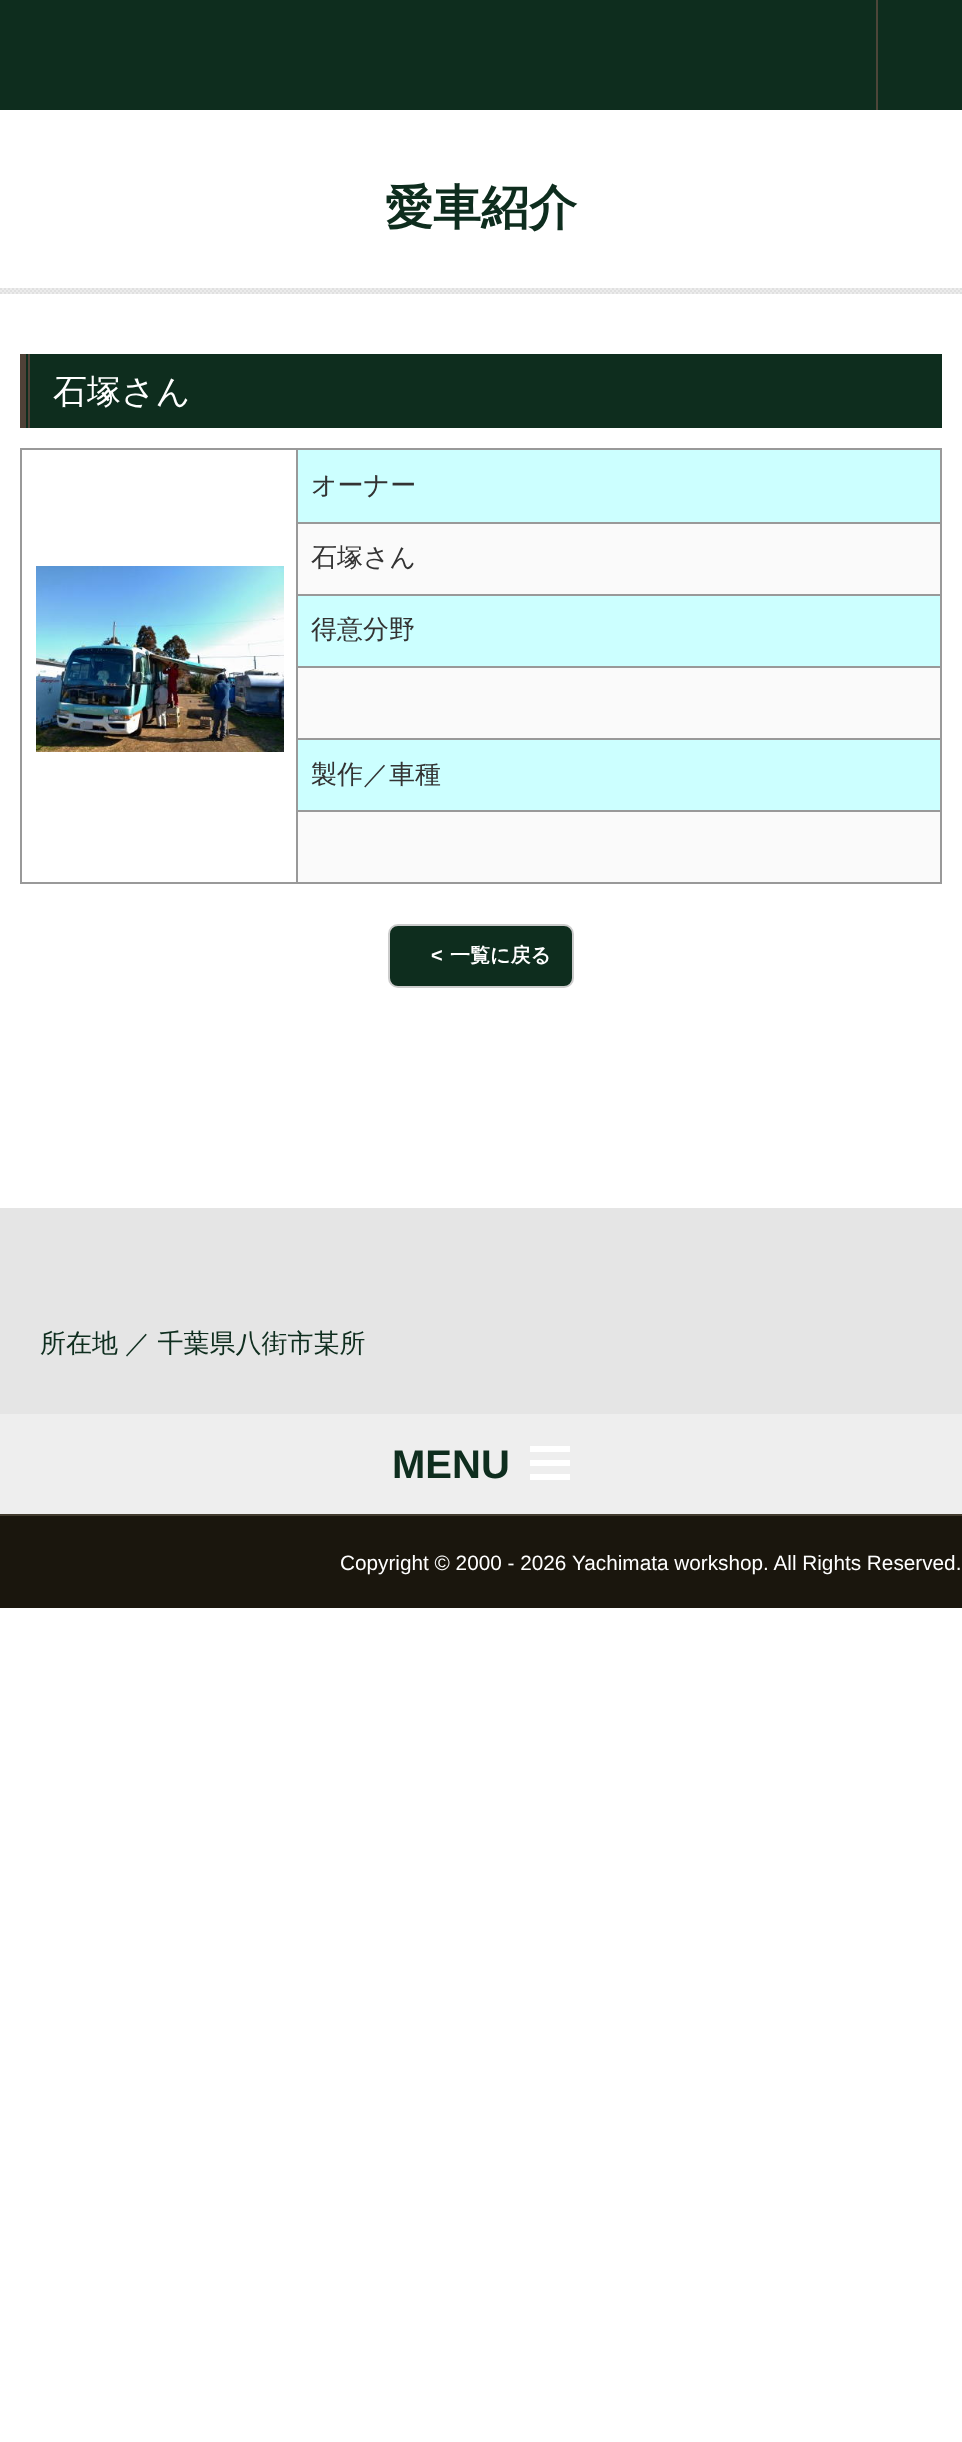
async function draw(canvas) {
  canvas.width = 962
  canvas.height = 2442
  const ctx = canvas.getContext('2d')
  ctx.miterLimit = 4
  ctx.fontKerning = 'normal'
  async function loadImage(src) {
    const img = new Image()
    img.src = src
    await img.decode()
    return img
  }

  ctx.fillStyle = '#fff'
  ctx.fillRect(0, 0, 962, 2442)
  ctx.fillStyle = '#0e2d1e'
  ctx.fillRect(0, 0, 962, 110)
  ctx.fillStyle = '#4d4639'
  ctx.fillRect(876, 0, 2, 110)
  ctx.font = 'bold 48px WenQuanYi Zen Hei'
  ctx.fillStyle = '#0e2d1e'
  ctx.fillText('愛車紹介', 385, 224)
  ctx.drawImage(await loadImage('image0.png'), 0, 288, 962, 6)
  ctx.fillRect(26, 354, 916, 74)
  ctx.fillStyle = '#4f4137'
  ctx.fillRect(20, 354, 6, 74)
  ctx.fillRect(28, 354, 2, 74)
  ctx.font = '500 34px WenQuanYi Zen Hei'
  ctx.fillStyle = '#fff'
  ctx.fillText('石塚さん', 53, 403)
  ctx.fillStyle = '#999'
  ctx.fillRect(296, 448, 646, 2)
  ctx.fillRect(296, 522, 646, 2)
  ctx.fillRect(296, 594, 646, 2)
  ctx.fillRect(296, 666, 646, 2)
  ctx.fillRect(296, 738, 646, 2)
  ctx.fillRect(296, 810, 646, 2)
  ctx.fillRect(940, 810, 2, 74)
  ctx.fillRect(296, 882, 646, 2)
  ctx.fillRect(296, 810, 2, 74)
  ctx.fillRect(296, 738, 2, 74)
  ctx.fillRect(296, 666, 2, 74)
  ctx.fillRect(296, 594, 2, 74)
  ctx.fillRect(296, 522, 2, 74)
  ctx.fillRect(296, 448, 2, 76)
  ctx.fillRect(20, 448, 278, 2)
  ctx.fillRect(20, 882, 278, 2)
  ctx.fillRect(20, 448, 2, 436)
  ctx.drawImage(await loadImage('image1.png'), 36, 566, 248, 186)
  ctx.fillStyle = '#cff'
  ctx.fillRect(298, 450, 642, 72)
  ctx.fillStyle = '#999'
  ctx.fillRect(940, 738, 2, 74)
  ctx.fillRect(940, 666, 2, 74)
  ctx.fillRect(940, 594, 2, 74)
  ctx.fillRect(940, 522, 2, 74)
  ctx.fillRect(940, 448, 2, 76)
  ctx.font = '500 26px WenQuanYi Zen Hei'
  ctx.fillStyle = '#333'
  ctx.fillText('オーナー', 311, 494)
  ctx.fillStyle = '#fafafa'
  ctx.fillRect(298, 524, 642, 70)
  ctx.fillStyle = '#333'
  ctx.fillText('石塚さん', 311, 566)
  ctx.fillStyle = '#cff'
  ctx.fillRect(298, 596, 642, 70)
  ctx.fillStyle = '#333'
  ctx.fillText('得意分野', 311, 638)
  ctx.fillStyle = '#fafafa'
  ctx.fillRect(298, 668, 642, 70)
  ctx.fillStyle = '#cff'
  ctx.fillRect(298, 740, 642, 70)
  ctx.fillStyle = '#333'
  ctx.fillText('製作／車種', 311, 783)
  ctx.fillStyle = '#fafafa'
  ctx.fillRect(298, 812, 642, 70)
  ctx.fillStyle = '#0e2d1e'
  ctx.beginPath()
  ctx.roundRect(389, 925, 184, 62, 9)
  ctx.fill()
  ctx.strokeStyle = '#ccc'
  ctx.lineWidth = 2
  ctx.stroke()
  ctx.font = 'bold 20px Liberation Sans'
  ctx.fillStyle = '#fff'
  ctx.fillText('<', 431, 962)
  ctx.font = 'bold 20px WenQuanYi Zen Hei'
  ctx.fillText('一覧に戻る', 450, 962)
  ctx.fillStyle = '#e5e5e5'
  ctx.fillRect(0, 1208, 962, 206)
  ctx.wordSpacing = '-1px'
  ctx.font = '500 26px WenQuanYi Zen Hei'
  ctx.fillStyle = '#0e2d1e'
  ctx.fillText('所在地 ／ 千葉県八街市某所', 40, 1352)
  ctx.fillStyle = '#eee'
  ctx.fillRect(0, 1414, 962, 100)
  ctx.wordSpacing = '0px'
  ctx.font = 'bold 40px Liberation Sans'
  ctx.fillStyle = '#0e2d1e'
  ctx.fillText('MENU', 392, 1478)
  ctx.fillStyle = '#fff'
  ctx.fillRect(530, 1446, 40, 6)
  ctx.fillRect(530, 1474, 40, 6)
  ctx.fillRect(530, 1460, 40, 6)
  ctx.fillStyle = '#1a160d'
  ctx.fillRect(0, 1516, 962, 92)
  ctx.fillStyle = '#423b2e'
  ctx.fillRect(0, 1514, 962, 2)
  ctx.font = '20.75px Liberation Sans'
  ctx.fillStyle = '#fff'
  ctx.fillText('Copyright © 2000 - 2026', 340, 1570)
  ctx.fillText('Yachimata workshop. All Rights Reserved.', 572, 1570)
}

draw(document.querySelector('canvas'))
